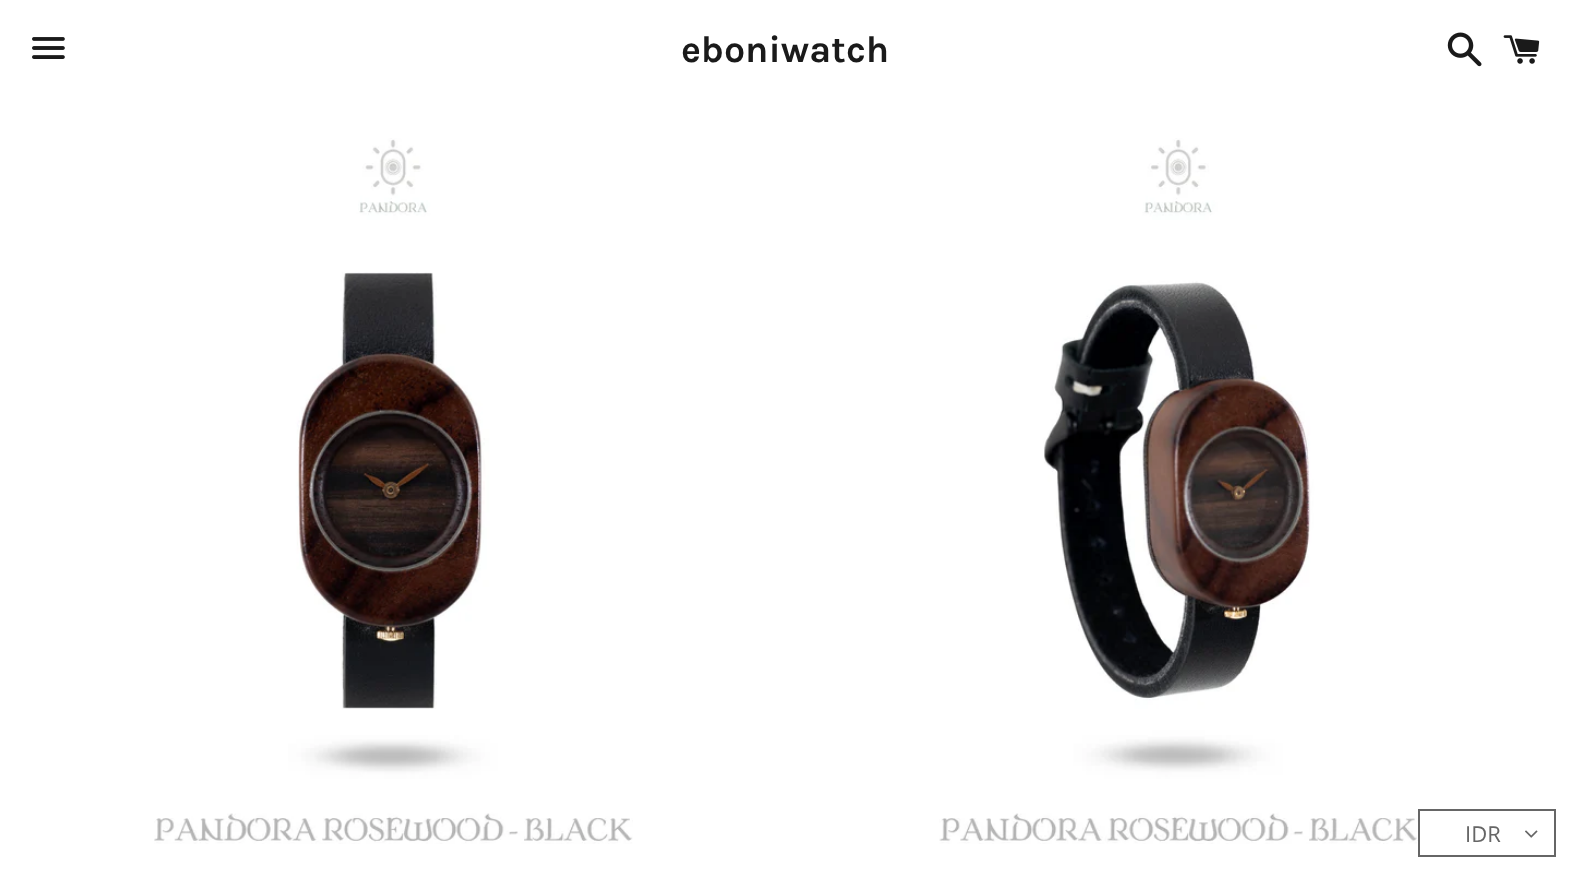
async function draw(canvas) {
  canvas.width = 1570
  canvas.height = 871
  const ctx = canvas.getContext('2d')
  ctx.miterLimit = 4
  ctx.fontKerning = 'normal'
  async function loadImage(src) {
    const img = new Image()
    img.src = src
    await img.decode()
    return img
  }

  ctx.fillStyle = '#fff'
  ctx.fillRect(0, 0, 1570, 871)
  ctx.drawImage(await loadImage('image0.png'), 32, 37, 33, 22)
  ctx.font = 'bold 37.5px Karla'
  ctx.fillStyle = '#1a1a1a'
  ctx.fillText('eboniwatch', 681, 62)
  ctx.drawImage(await loadImage('image1.png'), 1447, 32, 35, 35)
  ctx.drawImage(await loadImage('image2.png'), 1503, 35, 37, 29)
  ctx.strokeStyle = '#666'
  ctx.lineWidth = 2
  ctx.strokeRect(1419, 810, 136, 46)
  ctx.font = '22px Open Sans'
  ctx.fillStyle = '#666'
  ctx.fillText('IDR', 1465, 842)
  ctx.drawImage(await loadImage('image3.png'), 1525, 830, 13, 8)
  ctx.drawImage(await loadImage('image4.png'), 154, 138, 479, 706)
  ctx.drawImage(await loadImage('image5.png'), 939, 138, 479, 706)
}

draw(document.querySelector('canvas'))
